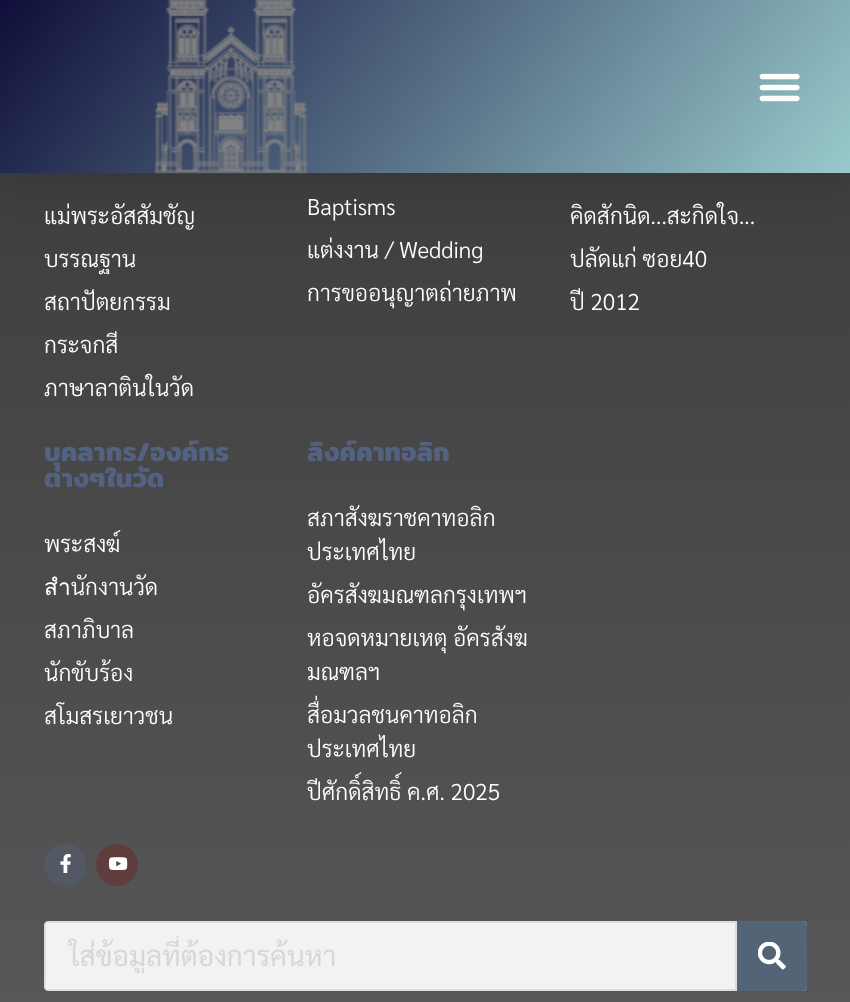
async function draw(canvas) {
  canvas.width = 850
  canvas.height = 1002
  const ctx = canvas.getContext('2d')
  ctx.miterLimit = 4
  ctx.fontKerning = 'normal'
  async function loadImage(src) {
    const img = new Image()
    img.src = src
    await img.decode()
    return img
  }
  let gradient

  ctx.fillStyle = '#fff'
  ctx.fillRect(0, 0, 850, 1002)
  gradient = ctx.createLinearGradient(425, 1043, 425, 7)
  gradient.addColorStop(0, '#58585a')
  gradient.addColorStop(1, '#3a3a3a')
  ctx.fillStyle = gradient
  ctx.fillRect(0, 173, 850, 829)
  ctx.fillStyle = '#0000001a'
  ctx.filter = 'blur(17.5px)'
  ctx.beginPath()
  ctx.rect(0, 18, 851, 173)
  ctx.fill()
  ctx.filter = 'none'
  gradient = ctx.createLinearGradient(133, -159, 717, 332)
  gradient.addColorStop(0, '#0f0e3a')
  gradient.addColorStop(1, '#99cacc')
  ctx.fillStyle = gradient
  ctx.fillRect(0, 0, 850, 173)
  ctx.drawImage(await loadImage('image0.png'), 154, 0, 154, 174)
  ctx.drawImage(await loadImage('image1.png'), 759, 73, 41, 29)
  ctx.font = '300 22.75px Sarabun'
  ctx.fillStyle = '#fff'
  ctx.fillText('แม่พระอัสสัมชัญ', 44, 224)
  ctx.fillText('บรรณฐาน', 44, 267)
  ctx.fillText('สถาปัตยกรรม', 44, 310)
  ctx.fillText('กระจกสี', 44, 353)
  ctx.fillText('ภาษาลาตินในวัด', 44, 396)
  ctx.fillText('Baptisms', 307, 215)
  ctx.fillText('แต่งงาน / Wedding', 307, 258)
  ctx.fillText('การขออนุญาตถ่ายภาพ', 307, 301)
  ctx.fillText('คิดสักนิด...สะกิดใจ...', 570, 224)
  ctx.fillText('ปลัดแก่ ซอย40', 570, 267)
  ctx.fillText('ปี 2012', 570, 310)
  ctx.font = '600 26.25px Mitr'
  ctx.fillStyle = '#546281'
  ctx.fillText('บุคลากร/องค์กร', 44, 461)
  ctx.fillText('ต่างๆในวัด', 44, 487)
  ctx.font = '300 22.75px Sarabun'
  ctx.fillStyle = '#fff'
  ctx.fillText('พระสงฆ์', 44, 552)
  ctx.fillText('สำนักงานวัด', 44, 595)
  ctx.fillText('สภาภิบาล', 44, 638)
  ctx.fillText('นักขับร้อง', 44, 681)
  ctx.fillText('สโมสรเยาวชน', 44, 724)
  ctx.font = '600 26.25px Mitr'
  ctx.fillStyle = '#546281'
  ctx.fillText('ลิงค์คาทอลิก', 307, 461)
  ctx.font = '300 22.75px Sarabun'
  ctx.fillStyle = '#fff'
  ctx.fillText('สภาสังฆราชคาทอลิก', 307, 526)
  ctx.fillText('ประเทศไทย', 307, 560)
  ctx.fillText('อัครสังฆมณฑลกรุงเทพฯ', 307, 603)
  ctx.fillText('หอจดหมายเหตุ อัครสังฆ', 307, 646)
  ctx.fillText('มณฑลฯ', 307, 680)
  ctx.fillText('สื่อมวลชนคาทอลิก', 307, 723)
  ctx.fillText('ประเทศไทย', 307, 757)
  ctx.fillText('ปีศักดิ์สิทธิ์ ค.ศ. 2025', 307, 800)
  ctx.fillStyle = '#525864'
  ctx.beginPath()
  ctx.arc(65, 865, 21, 0, 2 * Math.PI)
  ctx.fill()
  ctx.drawImage(await loadImage('image2.png'), 60, 854, 11, 19)
  ctx.fillStyle = '#603d3d'
  ctx.beginPath()
  ctx.arc(117, 865, 21, 0, 2 * Math.PI)
  ctx.fill()
  ctx.drawImage(await loadImage('image3.png'), 109, 857, 19, 14)
  ctx.fillStyle = '#f2f2f2'
  ctx.beginPath()
  ctx.roundRect(44, 921, 763, 70, 5)
  ctx.fill()
  ctx.fillStyle = '#ddddde'
  ctx.beginPath()
  ctx.moveTo(49, 921)
  ctx.bezierCurveTo(46, 921, 44, 923, 44, 926)
  ctx.lineTo(44, 986)
  ctx.bezierCurveTo(44, 989, 46, 991, 49, 991)
  ctx.lineTo(737, 991)
  ctx.lineTo(737, 921)
  ctx.closePath()
  ctx.moveTo(46, 923)
  ctx.lineTo(46, 989)
  ctx.lineTo(735, 989)
  ctx.lineTo(735, 923)
  ctx.closePath()
  ctx.fill('evenodd')
  ctx.save()
  ctx.beginPath()
  ctx.rect(68, 936, 637, 37)
  ctx.clip()
  ctx.font = '28px Sarabun'
  ctx.fillStyle = '#d7d7d7'
  ctx.fillText('ใส่ข้อมูลที่ต้องการค้นหา', 69, 966)
  ctx.restore()
  ctx.fillStyle = '#546477'
  ctx.beginPath()
  ctx.roundRect(737, 921, 70, 70, [0, 5, 5, 0])
  ctx.fill()
  ctx.drawImage(await loadImage('image4.png'), 758, 942, 28, 28)
}

draw(document.querySelector('canvas'))
